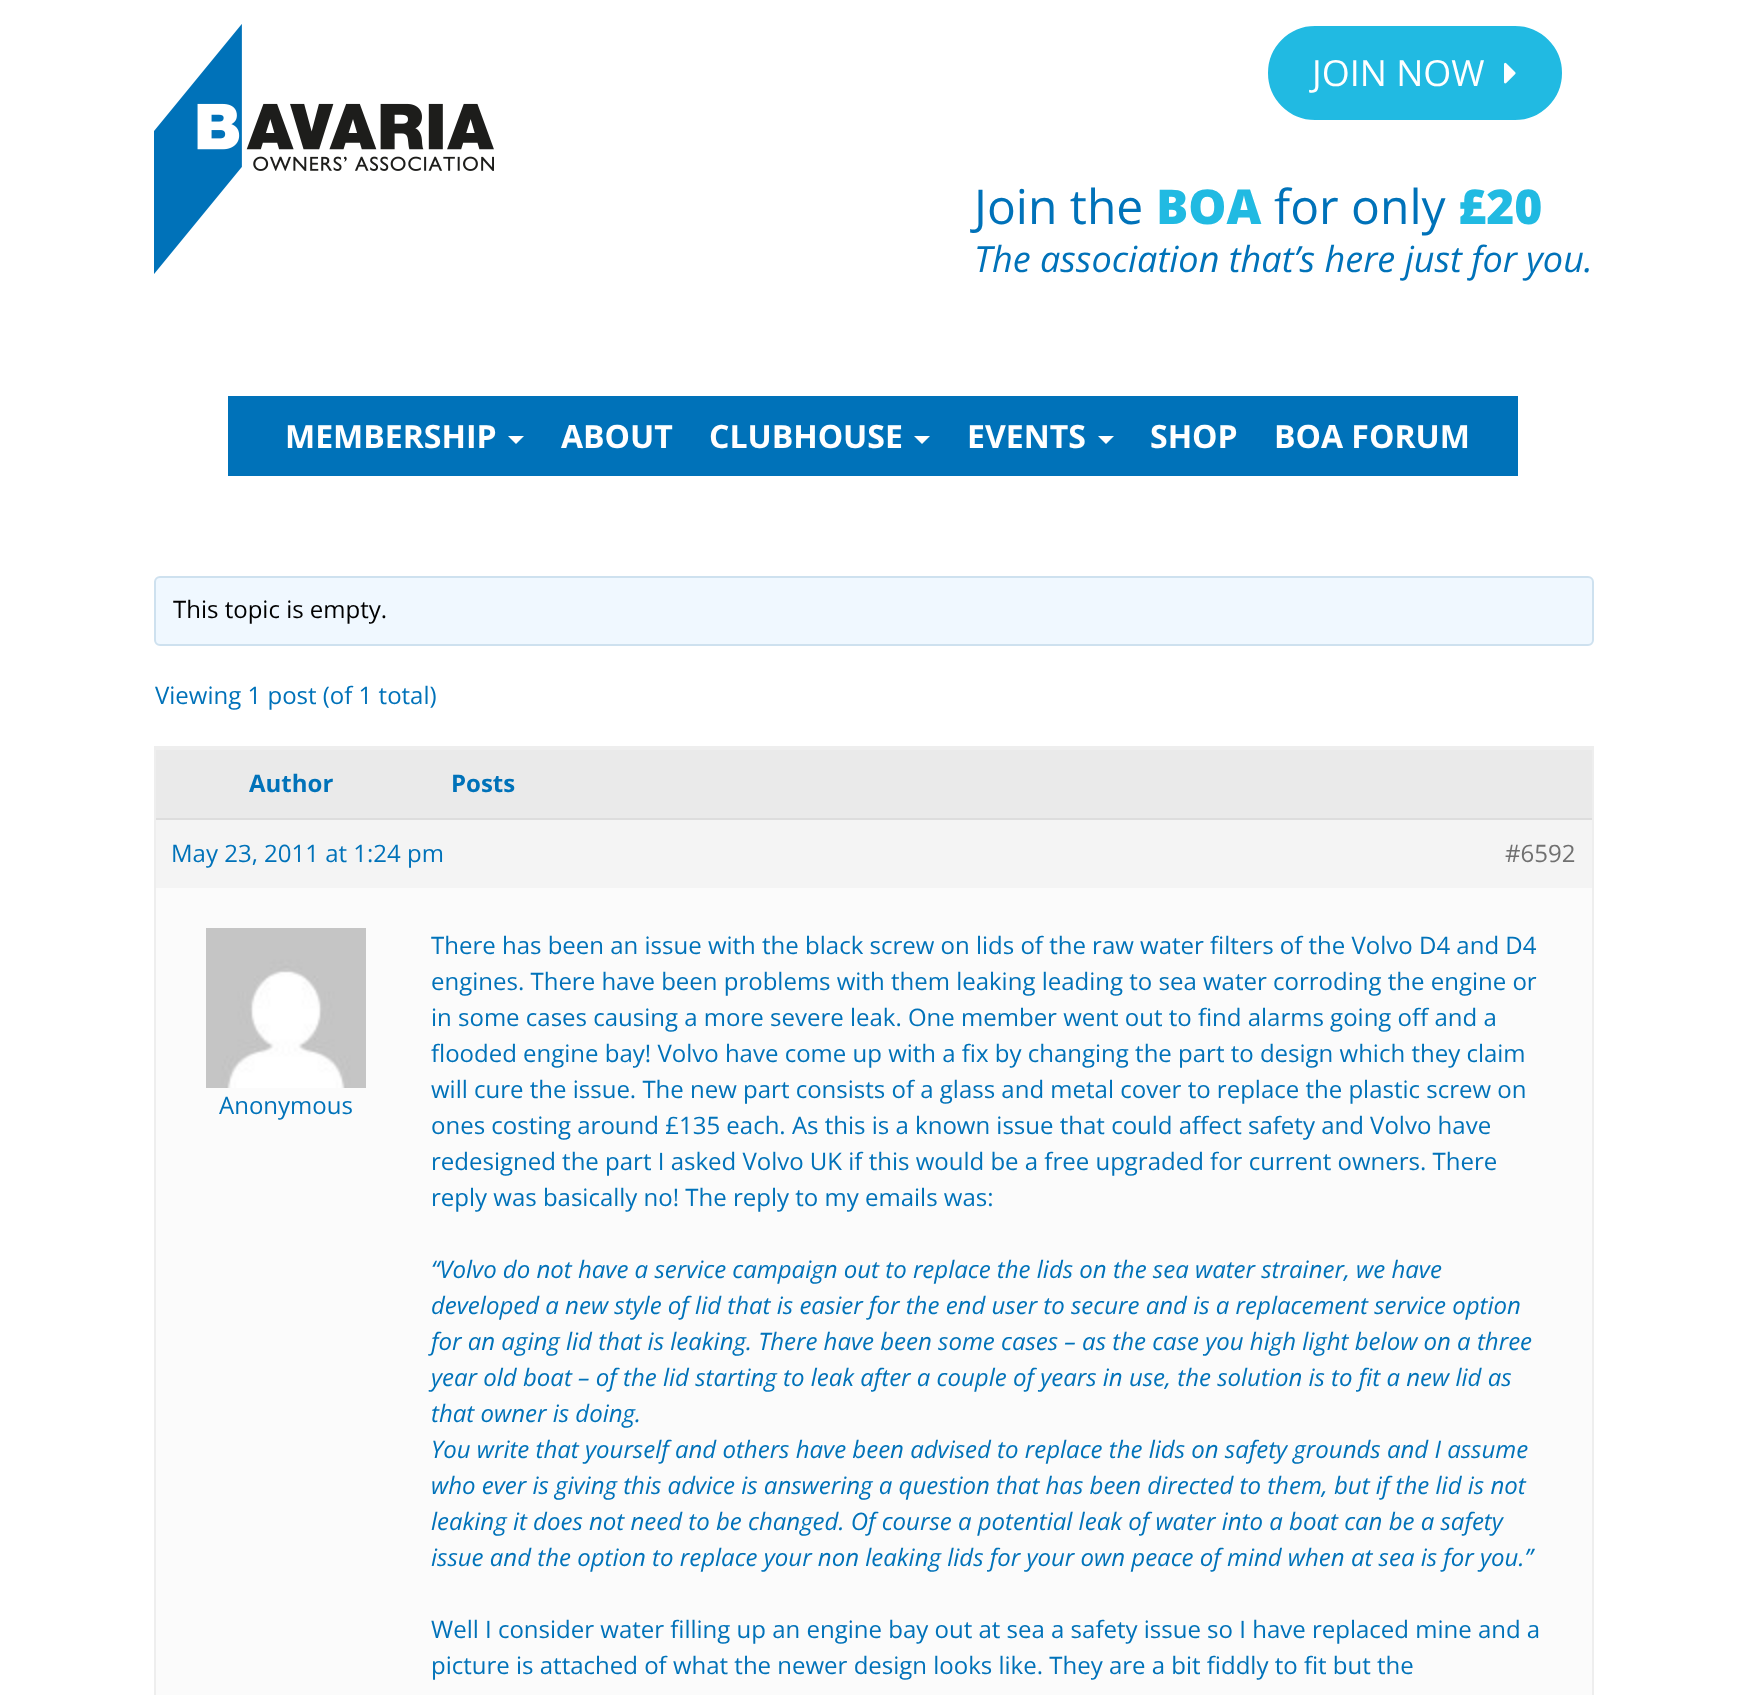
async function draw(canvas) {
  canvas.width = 1746
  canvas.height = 1695
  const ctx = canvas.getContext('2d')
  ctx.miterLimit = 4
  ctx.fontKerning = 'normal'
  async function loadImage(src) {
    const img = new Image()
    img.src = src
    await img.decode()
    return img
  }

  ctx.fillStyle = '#fff'
  ctx.fillRect(0, 0, 1746, 1695)
  ctx.drawImage(await loadImage('image0.png'), 154, 24, 340, 250)
  ctx.fillStyle = '#21bae2'
  ctx.beginPath()
  ctx.roundRect(1267, 25, 296, 96, 48)
  ctx.fill()
  ctx.strokeStyle = '#fff'
  ctx.lineWidth = 2
  ctx.stroke()
  ctx.font = '36px Open Sans'
  ctx.fillStyle = '#fff'
  ctx.fillText('JOIN NOW', 1312, 86)
  ctx.drawImage(await loadImage('image1.png'), 1504, 62, 12, 22)
  ctx.font = '48px Open Sans'
  ctx.fillStyle = '#0072b9'
  ctx.fillText('Join the', 974, 224)
  ctx.font = '800 48px Open Sans'
  ctx.fillStyle = '#21bae2'
  ctx.fillText('BOA', 1156, 224)
  ctx.font = '48px Open Sans'
  ctx.fillStyle = '#0072b9'
  ctx.fillText('for only', 1274, 224)
  ctx.font = '800 48px Open Sans'
  ctx.fillStyle = '#21bae2'
  ctx.fillText('£20', 1458, 224)
  ctx.font = 'italic 36px Open Sans'
  ctx.fillStyle = '#0072b9'
  ctx.fillText('The association that’s here just for you.', 974, 272)
  ctx.fillRect(228, 396, 1290, 80)
  ctx.font = 'bold 32px Open Sans'
  ctx.fillStyle = '#fff'
  ctx.fillText('MEMBERSHIP', 285, 448)
  ctx.beginPath()
  ctx.moveTo(508, 436)
  ctx.lineTo(524, 436)
  ctx.lineTo(516, 444)
  ctx.closePath()
  ctx.fill()
  ctx.fillText('ABOUT', 561, 448)
  ctx.fillText('CLUBHOUSE', 709, 448)
  ctx.beginPath()
  ctx.moveTo(914, 436)
  ctx.lineTo(930, 436)
  ctx.lineTo(922, 444)
  ctx.closePath()
  ctx.fill()
  ctx.fillText('EVENTS', 967, 448)
  ctx.beginPath()
  ctx.moveTo(1098, 436)
  ctx.lineTo(1114, 436)
  ctx.lineTo(1106, 444)
  ctx.closePath()
  ctx.fill()
  ctx.fillText('SHOP', 1150, 448)
  ctx.fillText('BOA FORUM', 1274, 448)
  ctx.fillStyle = '#f0f8ff'
  ctx.beginPath()
  ctx.roundRect(155, 577, 1438, 68, 5)
  ctx.fill()
  ctx.strokeStyle = '#cee1ef'
  ctx.stroke()
  ctx.font = '24px Open Sans'
  ctx.fillStyle = '#000'
  ctx.fillText('This topic is empty.', 173, 618)
  ctx.fillStyle = '#0072b9'
  ctx.fillText('Viewing 1 post (of 1 total)', 155, 704)
  ctx.strokeStyle = '#eee'
  ctx.strokeRect(155, 747, 1438, 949)
  ctx.fillStyle = '#eaeaea'
  ctx.fillRect(156, 750, 1436, 68)
  ctx.fillStyle = '#eee'
  ctx.fillRect(156, 748, 1436, 2)
  ctx.font = 'bold 24px Open Sans'
  ctx.fillStyle = '#0072b9'
  ctx.fillText('Author', 249, 792)
  ctx.fillText('Posts', 451, 792)
  ctx.fillStyle = '#f4f4f4'
  ctx.fillRect(156, 820, 1436, 68)
  ctx.fillStyle = '#ddd'
  ctx.fillRect(156, 818, 1436, 2)
  ctx.font = '24px Open Sans'
  ctx.fillStyle = '#0072b9'
  ctx.fillText('May 23, 2011 at 1:24 pm', 171, 862)
  ctx.fillStyle = '#707070'
  ctx.fillText('#6592', 1505, 862)
  ctx.fillStyle = '#fbfbfb'
  ctx.fillRect(156, 888, 1436, 807)
  ctx.drawImage(await loadImage('image2.png'), 206, 928, 160, 160)
  ctx.fillStyle = '#0072b9'
  ctx.fillText('Anonymous', 219, 1114)
  ctx.fillText('There has been an issue with the black screw on lids of the raw water filters of the Volvo D4 and D4', 431, 954)
  ctx.fillText('engines. There have been problems with them leaking leading to sea water corroding the engine or', 431, 990)
  ctx.fillText('in some cases causing a more severe leak. One member went out to find alarms going off and a', 431, 1026)
  ctx.fillText('flooded engine bay! Volvo have come up with a fix by changing the part to design which they claim', 431, 1062)
  ctx.fillText('will cure the issue. The new part consists of a glass and metal cover to replace the plastic screw on', 431, 1098)
  ctx.fillText('ones costing around £135 each. As this is a known issue that could affect safety and Volvo have', 431, 1134)
  ctx.fillText('redesigned the part I asked Volvo UK if this would be a free upgraded for current owners. There', 431, 1170)
  ctx.fillText('reply was basically no! The reply to my emails was:', 431, 1206)
  ctx.font = 'italic 24px Open Sans'
  ctx.fillText('“Volvo do not have a service campaign out to replace the lids on the sea water strainer, we have', 431, 1278)
  ctx.fillText('developed a new style of lid that is easier for the end user to secure and is a replacement service option', 431, 1314)
  ctx.fillText('for an aging lid that is leaking. There have been some cases – as the case you high light below on a three', 431, 1350)
  ctx.fillText('year old boat – of the lid starting to leak after a couple of years in use, the solution is to fit a new lid as', 431, 1386)
  ctx.fillText('that owner is doing.', 431, 1422)
  ctx.fillText('You write that yourself and others have been advised to replace the lids on safety grounds and I assume', 431, 1458)
  ctx.fillText('who ever is giving this advice is answering a question that has been directed to them, but if the lid is not', 431, 1494)
  ctx.fillText('leaking it does not need to be changed. Of course a potential leak of water into a boat can be a safety', 431, 1530)
  ctx.fillText('issue and the option to replace your non leaking lids for your own peace of mind when at sea is for you.”', 431, 1566)
  ctx.font = '24px Open Sans'
  ctx.fillText('Well I consider water filling up an engine bay out at sea a safety issue so I have replaced mine and a', 431, 1638)
  ctx.fillText('picture is attached of what the newer design looks like. They are a bit fiddly to fit but the', 431, 1674)
}

draw(document.querySelector('canvas'))
